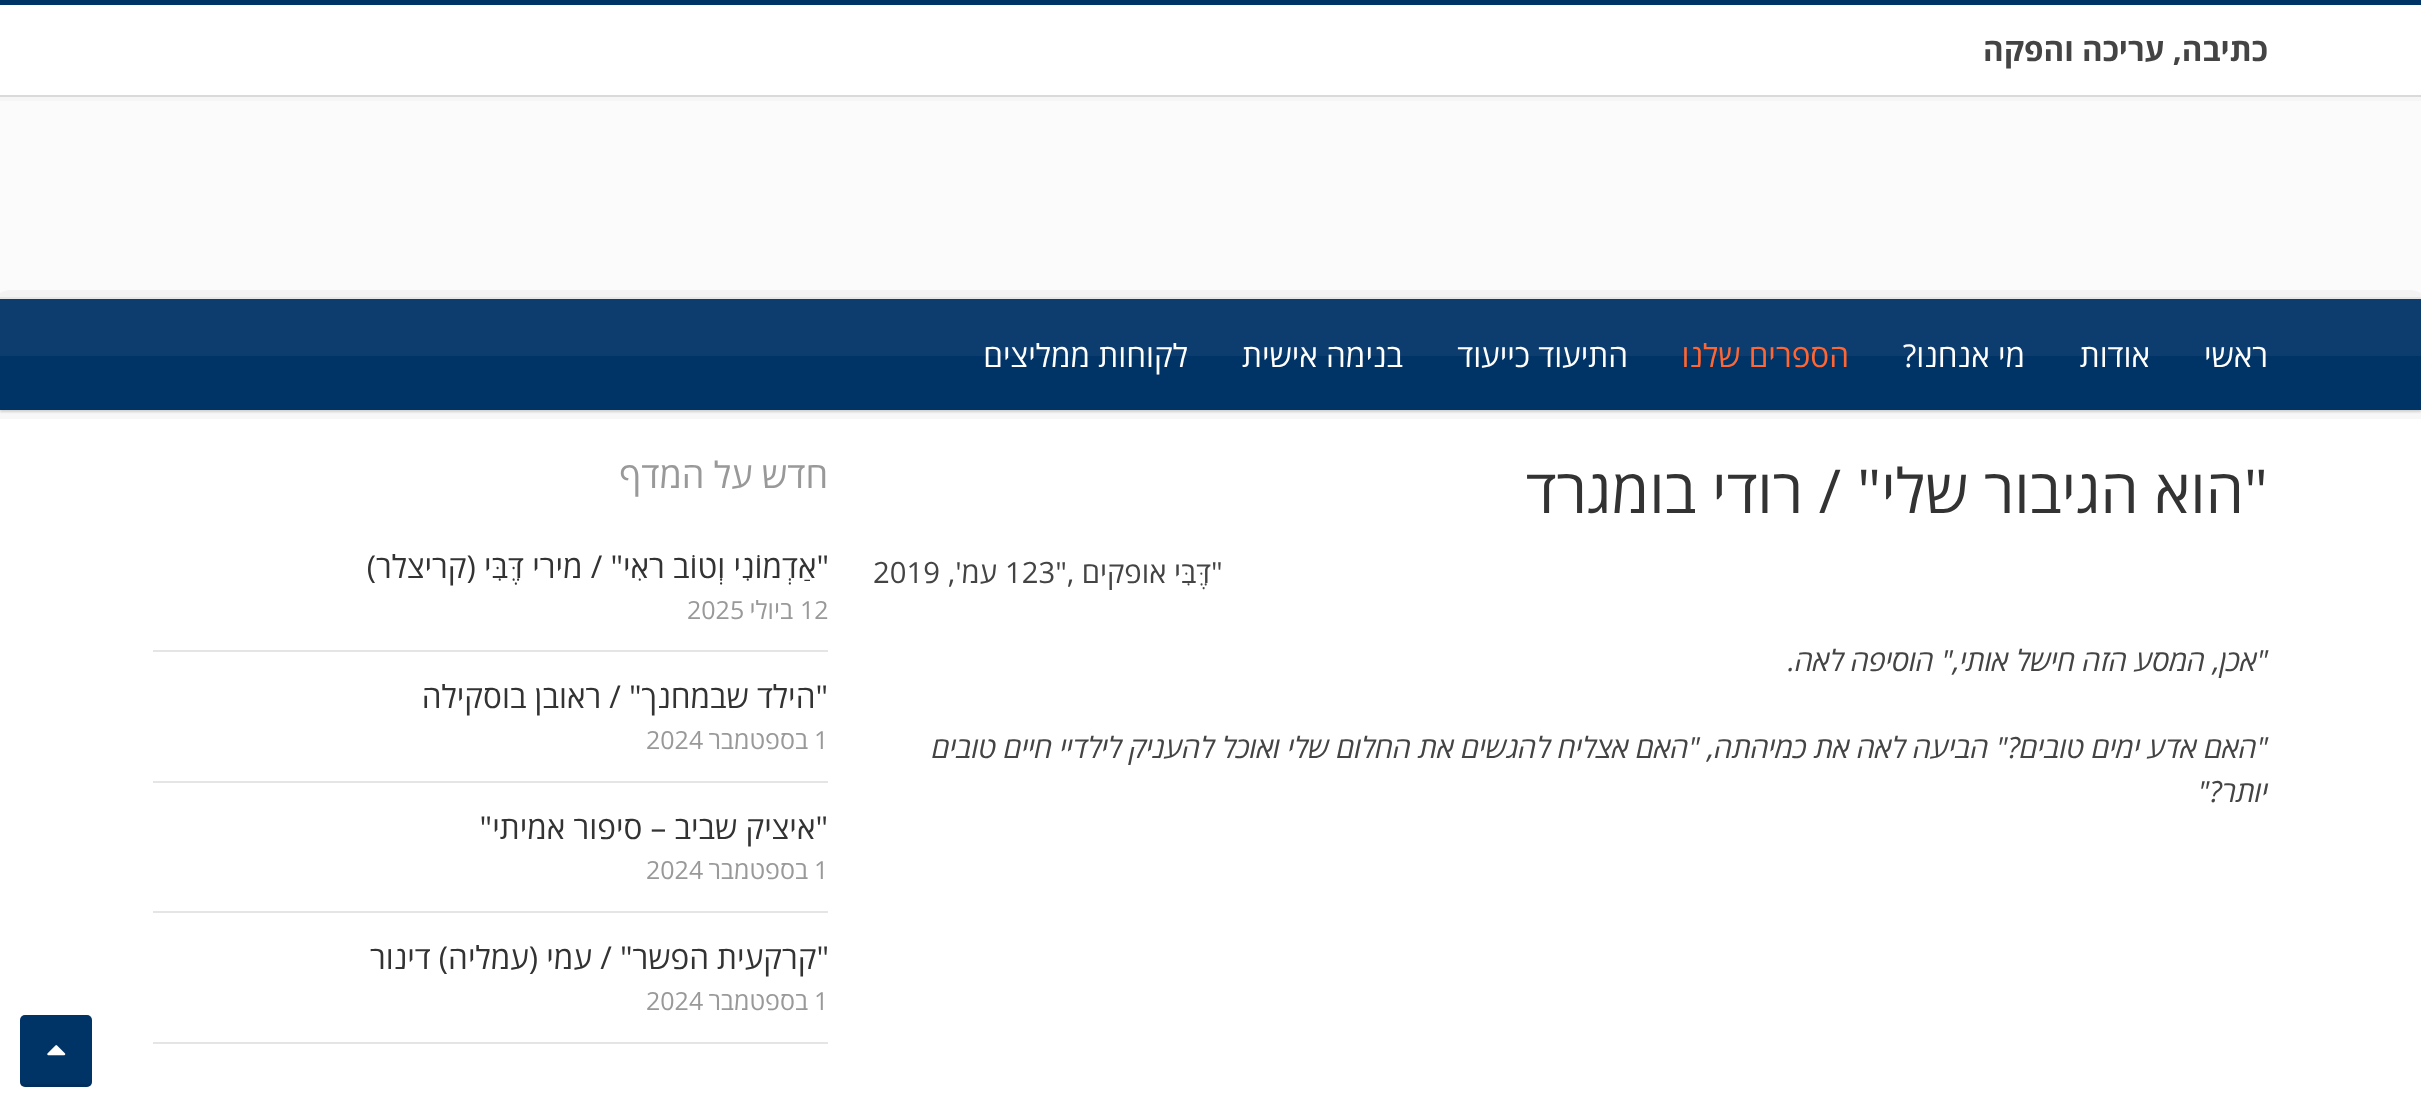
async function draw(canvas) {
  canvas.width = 2421
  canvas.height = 1106
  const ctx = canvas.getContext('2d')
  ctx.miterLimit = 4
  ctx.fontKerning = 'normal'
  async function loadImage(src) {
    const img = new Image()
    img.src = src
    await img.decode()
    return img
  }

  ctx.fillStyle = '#fbfbfb'
  ctx.fillRect(0, 0, 2421, 1106)
  ctx.fillStyle = '#f6f6f6'
  ctx.fillRect(0, 97, 2421, 4)
  ctx.fillStyle = '#fff'
  ctx.fillRect(0, 5, 2421, 90)
  ctx.fillStyle = '#036'
  ctx.fillRect(0, 0, 2421, 5)
  ctx.fillStyle = '#dadada'
  ctx.fillRect(0, 95, 2421, 2)
  ctx.direction = 'rtl'
  ctx.font = 'bold 31.5px Open Sans'
  ctx.fillStyle = '#444'
  ctx.fillText('כתיבה, עריכה והפקה', 2268, 61)
  ctx.beginPath()
  ctx.roundRect(-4.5, 294.5, 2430, 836, 15.5)
  ctx.strokeStyle = '#f3f3f3'
  ctx.lineWidth = 9
  ctx.stroke()
  ctx.strokeStyle = '#0000000d'
  ctx.lineWidth = 2
  ctx.strokeRect(-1, 298, 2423, 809)
  ctx.fillStyle = '#f7f7f7'
  ctx.fillRect(0, 410, 2421, 9)
  ctx.fillStyle = '#00000026'
  ctx.filter = 'blur(1px)'
  ctx.beginPath()
  ctx.rect(0, 302, 2421, 110)
  ctx.fill()
  ctx.filter = 'none'
  ctx.fillStyle = '#036'
  ctx.fillRect(0, 356, 2421, 54)
  ctx.fillStyle = '#0d3d6e'
  ctx.fillRect(0, 299, 2421, 57)
  ctx.font = '31.5px Open Sans'
  ctx.fillStyle = '#fff'
  ctx.fillText('ראשי', 2268, 367)
  ctx.fillText('אודות', 2150, 367)
  ctx.fillText('מי אנחנו?', 2025, 367)
  ctx.fillStyle = '#f63'
  ctx.fillText('הספרים שלנו', 1849, 367)
  ctx.fillStyle = '#fff'
  ctx.fillText('התיעוד כייעוד', 1628, 367)
  ctx.fillText('בנימה אישית', 1403, 367)
  ctx.fillText('לקוחות ממליצים', 1188, 367)
  ctx.fillRect(0, 419, 2421, 687)
  ctx.font = '60.75px Open Sans'
  ctx.fillStyle = '#333'
  ctx.fillText('"הוא הגיבור שלי" / רודי בומגרד', 2268, 513)
  ctx.direction = 'ltr'
  ctx.font = '29.25px Open Sans'
  ctx.fillStyle = '#444'
  ctx.fillText('"', 1211, 583)
  ctx.direction = 'rtl'
  ctx.fillText('דֶּבִּי אופקים', 1211, 583)
  ctx.direction = 'ltr'
  ctx.fillText('123",', 1005, 583)
  ctx.direction = 'rtl'
  ctx.fillText('עמ\',', 997, 583)
  ctx.direction = 'ltr'
  ctx.fillText('2019', 873, 583)
  ctx.direction = 'rtl'
  ctx.font = 'italic 29.25px Open Sans'
  ctx.fillText('"אכן, המסע הזה חישל אותי," הוסיפה לאה.', 2268, 671)
  ctx.fillText('"האם אדע ימים טובים?" הביעה לאה את כמיהתה, "האם אצליח להגשים את החלום שלי ואוכל להעניק לילדיי חיים טובים', 2268, 758)
  ctx.fillText('יותר?"', 2268, 802)
  ctx.font = '36px Open Sans'
  ctx.fillStyle = '#999'
  ctx.fillText('חדש על המדף', 828, 488)
  ctx.fillStyle = '#e5e5e5'
  ctx.fillRect(153, 650, 675, 2)
  ctx.font = '31.5px Open Sans'
  ctx.fillStyle = '#333'
  ctx.fillText('"אַדְמוֹנִי וְטוֹב רֹאִי" / מירי דֶּבִּי (קריצלר)', 829, 578)
  ctx.direction = 'ltr'
  ctx.font = '25px Open Sans'
  ctx.fillStyle = '#999'
  ctx.fillText('12', 800, 619)
  ctx.direction = 'rtl'
  ctx.fillText('ביולי', 793, 619)
  ctx.direction = 'ltr'
  ctx.fillText('2025', 687, 619)
  ctx.fillStyle = '#e5e5e5'
  ctx.fillRect(153, 781, 675, 2)
  ctx.direction = 'rtl'
  ctx.font = '31.5px Open Sans'
  ctx.fillStyle = '#333'
  ctx.fillText('"הילד שבמחנך" / ראובן בוסקילה', 828, 708)
  ctx.direction = 'ltr'
  ctx.font = '25px Open Sans'
  ctx.fillStyle = '#999'
  ctx.fillText('1', 814, 749)
  ctx.direction = 'rtl'
  ctx.fillText('בספטמבר', 808, 749)
  ctx.direction = 'ltr'
  ctx.fillText('2024', 646, 749)
  ctx.fillStyle = '#e5e5e5'
  ctx.fillRect(153, 911, 675, 2)
  ctx.direction = 'rtl'
  ctx.font = '31.5px Open Sans'
  ctx.fillStyle = '#333'
  ctx.fillText('"איציק שביב – סיפור אמיתי"', 828, 839)
  ctx.direction = 'ltr'
  ctx.font = '25px Open Sans'
  ctx.fillStyle = '#999'
  ctx.fillText('1', 814, 879)
  ctx.direction = 'rtl'
  ctx.fillText('בספטמבר', 808, 879)
  ctx.direction = 'ltr'
  ctx.fillText('2024', 646, 879)
  ctx.fillStyle = '#e5e5e5'
  ctx.fillRect(153, 1042, 675, 2)
  ctx.direction = 'rtl'
  ctx.font = '31.5px Open Sans'
  ctx.fillStyle = '#333'
  ctx.fillText('"קרקעית הפשר" / עמי (עמליה) דינור', 829, 969)
  ctx.direction = 'ltr'
  ctx.font = '25px Open Sans'
  ctx.fillStyle = '#999'
  ctx.fillText('1', 814, 1010)
  ctx.direction = 'rtl'
  ctx.fillText('בספטמבר', 808, 1010)
  ctx.direction = 'ltr'
  ctx.fillText('2024', 646, 1010)
  ctx.fillStyle = '#036'
  ctx.beginPath()
  ctx.roundRect(20, 1015, 72, 72, 5)
  ctx.fill()
  ctx.fillStyle = '#00000012'
  ctx.beginPath()
  ctx.moveTo(20, 1080)
  ctx.bezierCurveTo(20, 1090, 27, 1087, 35, 1087)
  ctx.lineTo(77, 1087)
  ctx.bezierCurveTo(85, 1087, 92, 1090, 92, 1080)
  ctx.bezierCurveTo(92, 1082, 90, 1084, 88, 1084)
  ctx.lineTo(25, 1084)
  ctx.bezierCurveTo(22, 1084, 20, 1082, 20, 1080)
  ctx.closePath()
  ctx.fill()
  ctx.drawImage(await loadImage('image0.png'), 47, 1045, 19, 11)
}

draw(document.querySelector('canvas'))
